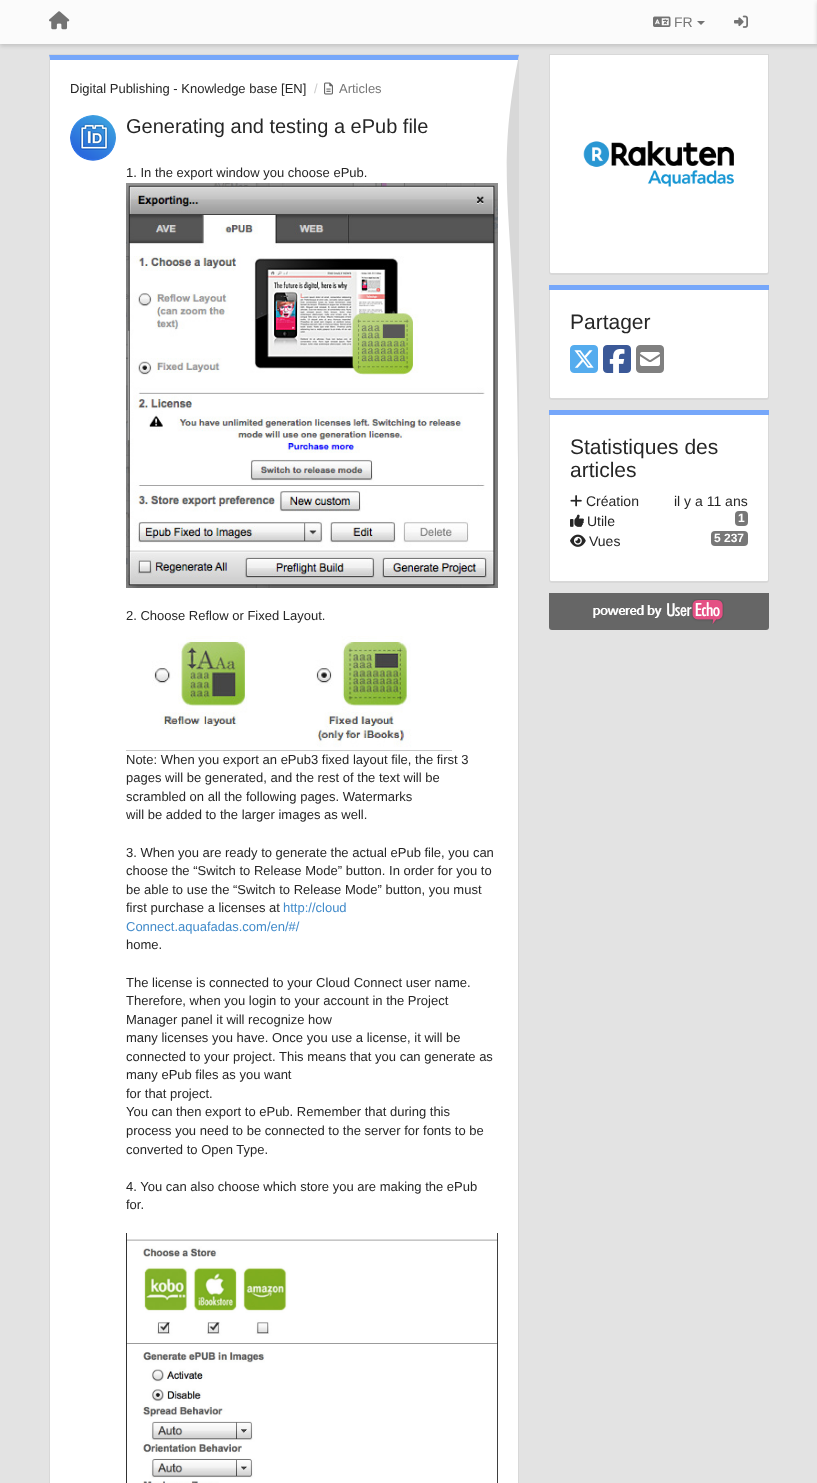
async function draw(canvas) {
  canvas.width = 817
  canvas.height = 1483
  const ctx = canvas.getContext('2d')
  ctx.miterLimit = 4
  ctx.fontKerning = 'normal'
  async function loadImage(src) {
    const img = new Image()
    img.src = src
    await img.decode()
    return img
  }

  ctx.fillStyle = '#e3e3e3'
  ctx.fillRect(0, 0, 817, 1483)
  ctx.fillStyle = '#00000026'
  ctx.filter = 'blur(2px)'
  ctx.beginPath()
  ctx.rect(0, 2, 817, 44)
  ctx.fill()
  ctx.filter = 'none'
  ctx.fillStyle = '#fbfbfb'
  ctx.fillRect(0, 0, 817, 44)
  ctx.drawImage(await loadImage('image0.png'), 49, 11, 21, 19)
  ctx.drawImage(await loadImage('image1.png'), 653, 16, 18, 11)
  ctx.font = '14px Liberation Sans'
  ctx.fillStyle = '#777'
  ctx.fillText('FR', 674, 27)
  ctx.fillStyle = '#737373'
  ctx.beginPath()
  ctx.moveTo(697, 21)
  ctx.lineTo(705, 21)
  ctx.lineTo(701, 25)
  ctx.closePath()
  ctx.fill()
  ctx.drawImage(await loadImage('image2.png'), 734, 15, 14, 13)
  ctx.fillStyle = '#00000026'
  ctx.filter = 'blur(2px)'
  ctx.beginPath()
  ctx.rect(817, 2, 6, 44)
  ctx.fill()
  ctx.filter = 'none'
  ctx.fillStyle = '#d8d8d8'
  ctx.fillRect(49, 54, 470, 1)
  ctx.fillStyle = '#fff'
  ctx.beginPath()
  ctx.moveTo(50, 60)
  ctx.lineTo(518, 60)
  ctx.lineTo(518, 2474)
  ctx.bezierCurveTo(518, 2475, 517, 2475, 516, 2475)
  ctx.lineTo(52, 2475)
  ctx.bezierCurveTo(51, 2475, 50, 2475, 50, 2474)
  ctx.closePath()
  ctx.fill()
  ctx.fillStyle = '#76a7fa'
  ctx.beginPath()
  ctx.moveTo(49, 55)
  ctx.lineTo(50, 60)
  ctx.lineTo(518, 60)
  ctx.lineTo(519, 55)
  ctx.closePath()
  ctx.fill()
  ctx.fillStyle = '#d8d8d8'
  ctx.beginPath()
  ctx.moveTo(519, 55)
  ctx.bezierCurveTo(492, 189, 518, 219, 518, 462)
  ctx.lineTo(518, 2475)
  ctx.lineTo(518, 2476)
  ctx.lineTo(519, 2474)
  ctx.closePath()
  ctx.fill()
  ctx.beginPath()
  ctx.moveTo(50, 60)
  ctx.lineTo(49, 55)
  ctx.lineTo(49, 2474)
  ctx.lineTo(50, 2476)
  ctx.lineTo(50, 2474)
  ctx.closePath()
  ctx.fill()
  ctx.font = '13px Liberation Sans'
  ctx.fillStyle = '#262626'
  ctx.fillText('Digital Publishing - Knowledge base [EN]', 70, 93)
  ctx.fillStyle = '#ccc'
  ctx.fillText('/', 314, 93)
  ctx.drawImage(await loadImage('image3.png'), 324, 82, 9, 13)
  ctx.fillStyle = '#777'
  ctx.fillText('Articles', 339, 93)
  ctx.drawImage(await loadImage('image4.png'), 70, 115, 46, 46)
  ctx.font = '20px Liberation Sans'
  ctx.fillStyle = '#262626'
  ctx.fillText('Generating and testing a ePub file', 126, 133)
  ctx.font = '13px Liberation Sans'
  ctx.fillText('1. In the export window you choose ePub.', 126, 177)
  ctx.drawImage(await loadImage('image5.png'), 126, 183, 372, 405)
  ctx.fillText('2. Choose Reflow or Fixed Layout.', 126, 620)
  ctx.drawImage(await loadImage('image6.png'), 126, 636, 326, 115)
  ctx.fillText('Note: When you export an ePub3 fixed layout file, the first 3', 126, 764)
  ctx.fillText('pages will be generated, and the rest of the text will be', 126, 782)
  ctx.fillText('scrambled on all the following pages. Watermarks', 126, 801)
  ctx.fillText('will be added to the larger images as well.', 126, 819)
  ctx.fillText('3. When you are ready to generate the actual ePub file, you can', 126, 857)
  ctx.fillText('choose the “Switch to Release Mode” button. In order for you to', 126, 875)
  ctx.fillText('be able to use the “Switch to Release Mode” button, you must', 126, 894)
  ctx.fillText('first purchase a licenses at', 126, 912)
  ctx.fillStyle = '#428bca'
  ctx.fillText('http://cloud', 283, 912)
  ctx.fillText('Connect.aquafadas.com/en/#/', 126, 931)
  ctx.fillStyle = '#262626'
  ctx.fillText('home.', 126, 949)
  ctx.fillText('The license is connected to your Cloud Connect user name.', 126, 987)
  ctx.fillText('Therefore, when you login to your account in the Project', 126, 1005)
  ctx.fillText('Manager panel it will recognize how', 126, 1024)
  ctx.fillText('many licenses you have. Once you use a license, it will be', 126, 1042)
  ctx.fillText('connected to your project. This means that you can generate as', 126, 1061)
  ctx.fillText('many ePub files as you want', 126, 1079)
  ctx.fillText('for that project.', 126, 1098)
  ctx.fillText('You can then export to ePub. Remember that during this', 126, 1116)
  ctx.fillText('process you need to be connected to the server for fonts to be', 126, 1135)
  ctx.fillText('converted to Open Type.', 126, 1154)
  ctx.fillText('4. You can also choose which store you are making the ePub', 126, 1191)
  ctx.fillText('for.', 126, 1209)
  ctx.drawImage(await loadImage('image7.png'), 126, 1233, 372, 250)
  ctx.fillStyle = '#d8d8d8'
  ctx.fillRect(549, 54, 220, 1)
  ctx.fillStyle = '#fff'
  ctx.beginPath()
  ctx.moveTo(550, 55)
  ctx.lineTo(768, 55)
  ctx.lineTo(768, 272)
  ctx.bezierCurveTo(768, 273, 767, 273, 766, 273)
  ctx.lineTo(552, 273)
  ctx.bezierCurveTo(551, 273, 550, 273, 550, 272)
  ctx.closePath()
  ctx.fill()
  ctx.fillStyle = '#d8d8d8'
  ctx.beginPath()
  ctx.moveTo(549, 55)
  ctx.lineTo(769, 55)
  ctx.lineTo(769, 272)
  ctx.bezierCurveTo(769, 274, 768, 275, 766, 275)
  ctx.lineTo(552, 275)
  ctx.bezierCurveTo(550, 275, 549, 274, 549, 272)
  ctx.closePath()
  ctx.moveTo(550, 55)
  ctx.lineTo(768, 55)
  ctx.lineTo(768, 272)
  ctx.bezierCurveTo(768, 273, 767, 273, 766, 273)
  ctx.lineTo(552, 273)
  ctx.bezierCurveTo(551, 273, 550, 273, 550, 272)
  ctx.closePath()
  ctx.fill('evenodd')
  ctx.drawImage(await loadImage('image8.png'), 583, 141, 151, 46)
  ctx.fillStyle = '#76a7fa'
  ctx.fillRect(549, 285, 220, 5)
  ctx.fillStyle = '#fff'
  ctx.beginPath()
  ctx.moveTo(550, 290)
  ctx.lineTo(768, 290)
  ctx.lineTo(768, 397)
  ctx.bezierCurveTo(768, 398, 767, 398, 766, 398)
  ctx.lineTo(552, 398)
  ctx.bezierCurveTo(551, 398, 550, 398, 550, 397)
  ctx.closePath()
  ctx.fill()
  ctx.fillStyle = '#d8d8d8'
  ctx.beginPath()
  ctx.moveTo(549, 290)
  ctx.lineTo(769, 290)
  ctx.lineTo(769, 397)
  ctx.bezierCurveTo(769, 399, 768, 400, 766, 400)
  ctx.lineTo(552, 400)
  ctx.bezierCurveTo(550, 400, 549, 399, 549, 397)
  ctx.closePath()
  ctx.moveTo(550, 290)
  ctx.lineTo(768, 290)
  ctx.lineTo(768, 397)
  ctx.bezierCurveTo(768, 398, 767, 398, 766, 398)
  ctx.lineTo(552, 398)
  ctx.bezierCurveTo(551, 398, 550, 398, 550, 397)
  ctx.closePath()
  ctx.fill('evenodd')
  ctx.font = '21px Liberation Sans'
  ctx.fillStyle = '#262626'
  ctx.fillText('Partager', 570, 329)
  ctx.drawImage(await loadImage('image9.png'), 570, 345, 28, 28)
  ctx.drawImage(await loadImage('image10.png'), 603, 345, 28, 28)
  ctx.drawImage(await loadImage('image11.png'), 636, 345, 28, 28)
  ctx.fillStyle = '#76a7fa'
  ctx.fillRect(549, 410, 220, 5)
  ctx.fillStyle = '#fff'
  ctx.beginPath()
  ctx.moveTo(550, 415)
  ctx.lineTo(768, 415)
  ctx.lineTo(768, 580)
  ctx.bezierCurveTo(768, 581, 767, 581, 766, 581)
  ctx.lineTo(552, 581)
  ctx.bezierCurveTo(551, 581, 550, 581, 550, 580)
  ctx.closePath()
  ctx.fill()
  ctx.fillStyle = '#d8d8d8'
  ctx.beginPath()
  ctx.moveTo(549, 415)
  ctx.lineTo(769, 415)
  ctx.lineTo(769, 580)
  ctx.bezierCurveTo(769, 582, 768, 583, 766, 583)
  ctx.lineTo(552, 583)
  ctx.bezierCurveTo(550, 583, 549, 582, 549, 580)
  ctx.closePath()
  ctx.moveTo(550, 415)
  ctx.lineTo(768, 415)
  ctx.lineTo(768, 580)
  ctx.bezierCurveTo(768, 581, 767, 581, 766, 581)
  ctx.lineTo(552, 581)
  ctx.bezierCurveTo(551, 581, 550, 581, 550, 580)
  ctx.closePath()
  ctx.fill('evenodd')
  ctx.fillStyle = '#262626'
  ctx.fillText('Statistiques des', 570, 454)
  ctx.fillText('articles', 570, 477)
  ctx.drawImage(await loadImage('image12.png'), 570, 495, 12, 12)
  ctx.font = '14px Liberation Sans'
  ctx.fillText('Création', 586, 506)
  ctx.fillText('il y a 11 ans', 674, 506)
  ctx.drawImage(await loadImage('image13.png'), 570, 514, 14, 13)
  ctx.fillText('Utile', 587, 526)
  ctx.fillStyle = '#777'
  ctx.beginPath()
  ctx.roundRect(735, 511, 13, 15, 4)
  ctx.fill()
  ctx.font = 'bold 12px Liberation Sans'
  ctx.fillStyle = '#fff'
  ctx.fillText('1', 738, 522)
  ctx.drawImage(await loadImage('image14.png'), 570, 534, 16, 13)
  ctx.font = '14px Liberation Sans'
  ctx.fillStyle = '#262626'
  ctx.fillText('Vues', 589, 546)
  ctx.fillStyle = '#777'
  ctx.beginPath()
  ctx.roundRect(711, 531, 37, 15, 4)
  ctx.fill()
  ctx.font = 'bold 12px Liberation Sans'
  ctx.fillStyle = '#fff'
  ctx.fillText('5 237', 714, 542)
  ctx.fillStyle = '#666'
  ctx.beginPath()
  ctx.roundRect(549, 593, 220, 37, [0, 0, 3, 3])
  ctx.fill()
  ctx.drawImage(await loadImage('image15.png'), 593, 599, 131, 25)
}

draw(document.querySelector('canvas'))
